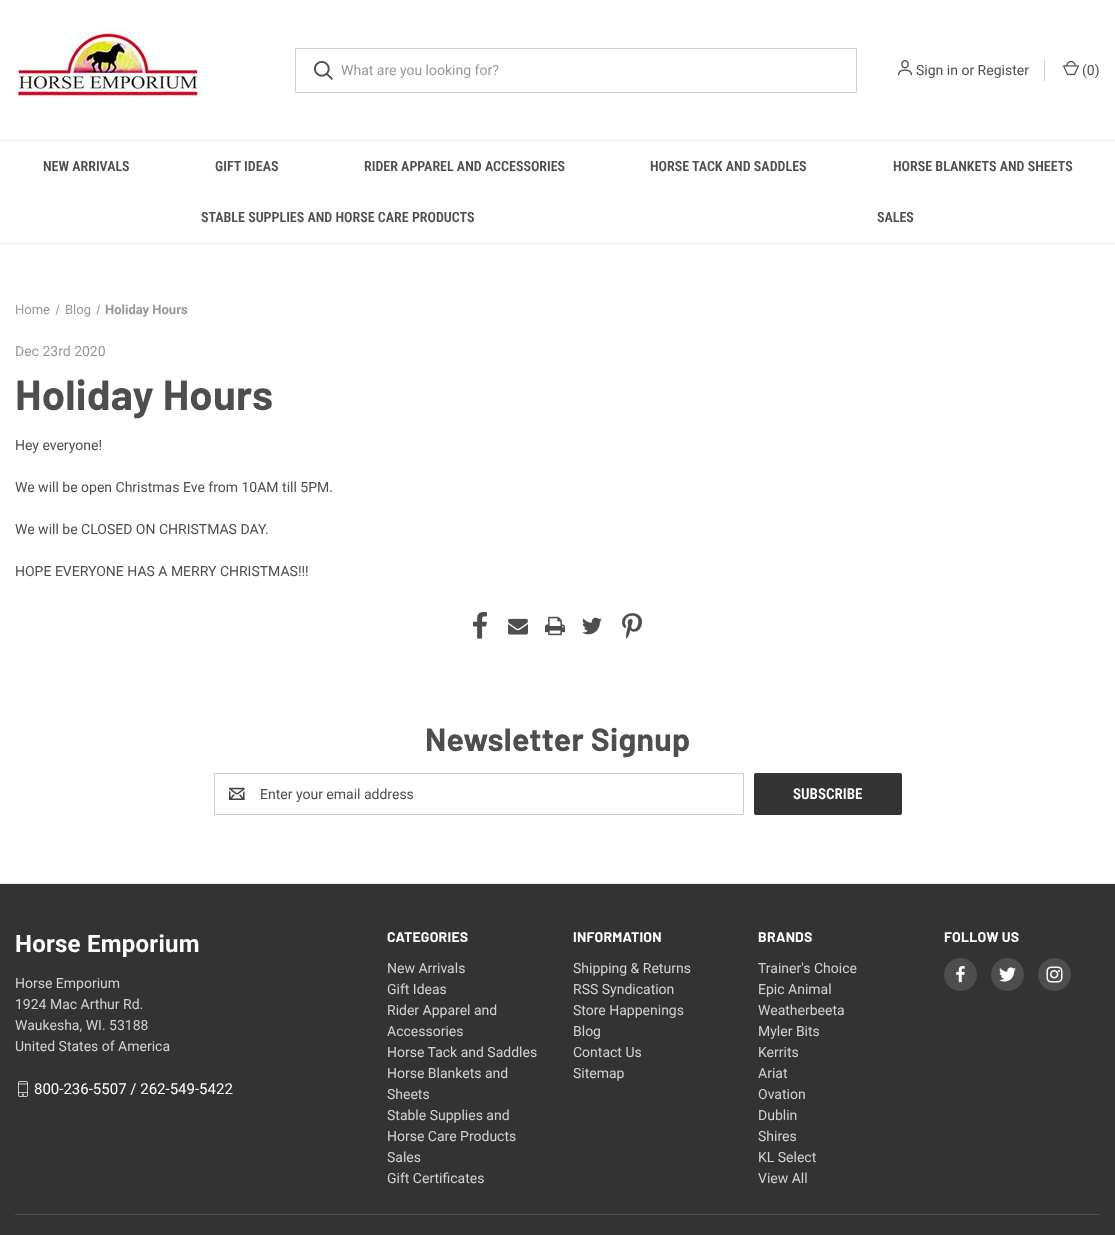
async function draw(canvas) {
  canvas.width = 1115
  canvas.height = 1235
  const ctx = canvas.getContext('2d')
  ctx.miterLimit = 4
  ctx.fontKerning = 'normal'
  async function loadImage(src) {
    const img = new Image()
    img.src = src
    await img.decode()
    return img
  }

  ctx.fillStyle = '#fff'
  ctx.fillRect(0, 0, 1115, 1235)
  ctx.drawImage(await loadImage('image0.png'), 15, 28, 185, 72)
  ctx.strokeStyle = '#d2d2d2'
  ctx.strokeRect(295.5, 48.5, 561, 44)
  ctx.drawImage(await loadImage('image1.png'), 314, 61, 19, 19)
  ctx.font = '14px Roboto'
  ctx.fillStyle = '#989898'
  ctx.fillText('What are you looking for?', 341, 75)
  ctx.drawImage(await loadImage('image2.png'), 898, 60, 14, 16)
  ctx.fillStyle = '#4e4e4e'
  ctx.fillText('Sign in or Register', 916, 75)
  ctx.fillStyle = '#d2d2d2'
  ctx.fillRect(1044, 60, 1, 21)
  ctx.drawImage(await loadImage('image3.png'), 1063, 61, 16, 15)
  ctx.fillStyle = '#4e4e4e'
  ctx.fillText('(0)', 1082, 75)
  ctx.fillStyle = '#ebebeb'
  ctx.fillRect(0, 140, 1115, 1)
  ctx.fillRect(0, 243, 1115, 1)
  ctx.font = '600 14px Roboto Condensed'
  ctx.fillStyle = '#4e4e4e'
  ctx.fillText('NEW ARRIVALS', 43, 171)
  ctx.fillText('GIFT IDEAS', 215, 171)
  ctx.fillText('RIDER APPAREL AND ACCESSORIES', 364, 171)
  ctx.fillText('HORSE TACK AND SADDLES', 650, 171)
  ctx.fillText('HORSE BLANKETS AND SHEETS', 893, 171)
  ctx.fillText('STABLE SUPPLIES AND HORSE CARE PRODUCTS', 201, 222)
  ctx.fillText('SALES', 877, 222)
  ctx.font = '13px Roboto'
  ctx.fillStyle = '#989898'
  ctx.fillText('Home', 15, 314)
  ctx.fillText('Blog', 65, 314)
  ctx.fillStyle = '#a3a3a3'
  ctx.beginPath()
  ctx.moveTo(58.5, 304.5)
  ctx.lineTo(59.5, 305)
  ctx.lineTo(56.5, 315)
  ctx.lineTo(55.5, 314.5)
  ctx.closePath()
  ctx.moveTo(99, 304.5)
  ctx.lineTo(100, 305)
  ctx.lineTo(97.5, 315)
  ctx.lineTo(96.5, 314.5)
  ctx.closePath()
  ctx.fill()
  ctx.font = 'bold 13px Roboto'
  ctx.fillStyle = '#989898'
  ctx.fillText('Holiday Hours', 105, 314)
  ctx.font = '14px Roboto'
  ctx.fillText('Dec 23rd 2020', 15, 356)
  ctx.letterSpacing = '0.25px'
  ctx.font = 'bold 42px Barlow'
  ctx.fillStyle = '#4e4e4e'
  ctx.fillText('Holiday Hours', 15, 410)
  ctx.letterSpacing = '0px'
  ctx.font = '14px Roboto'
  ctx.fillText('Hey everyone!', 15, 450)
  ctx.fillText('We will be open Christmas Eve from 10AM till 5PM.', 15, 492)
  ctx.fillText('We will be CLOSED ON CHRISTMAS DAY.', 15, 534)
  ctx.fillText('HOPE EVERYONE HAS A MERRY CHRISTMAS!!!', 15, 576)
  ctx.drawImage(await loadImage('image4.png'), 473, 612, 14, 27)
  ctx.drawImage(await loadImage('image5.png'), 508, 618, 20, 17)
  ctx.drawImage(await loadImage('image6.png'), 545, 616, 20, 20)
  ctx.drawImage(await loadImage('image7.png'), 582, 617, 20, 18)
  ctx.drawImage(await loadImage('image8.png'), 622, 613, 20, 26)
  ctx.letterSpacing = '0.25px'
  ctx.font = 'bold 32px Barlow'
  ctx.fillText('Newsletter Signup', 425, 751)
  ctx.strokeStyle = '#ccc'
  ctx.strokeRect(214.5, 773.5, 529, 41)
  ctx.drawImage(await loadImage('image9.png'), 229, 787, 16, 13)
  ctx.letterSpacing = '0px'
  ctx.font = '14px Roboto'
  ctx.fillText('Enter your email address', 260, 799)
  ctx.fillStyle = '#333'
  ctx.beginPath()
  ctx.roundRect(754, 773, 148, 42, 2)
  ctx.fill()
  ctx.font = '600 15px Roboto Condensed'
  ctx.fillStyle = '#fff'
  ctx.fillText('SUBSCRIBE', 793, 799)
  ctx.fillStyle = '#333'
  ctx.fillRect(0, 884, 1115, 351)
  ctx.fillStyle = '#ebebeb'
  ctx.fillRect(0, 883, 1115, 1)
  ctx.letterSpacing = '0.25px'
  ctx.font = 'bold 24px Roboto'
  ctx.fillStyle = '#fff'
  ctx.fillText('Horse Emporium', 15, 952)
  ctx.letterSpacing = '0px'
  ctx.font = '14px Roboto'
  ctx.fillStyle = '#d2d2d2'
  ctx.fillText('Horse Emporium', 15, 988)
  ctx.fillText('1924 Mac Arthur Rd.', 15, 1009)
  ctx.fillText('Waukesha, WI. 53188', 15, 1030)
  ctx.fillText('United States of America', 15, 1051)
  ctx.drawImage(await loadImage('image10.png'), 18, 1081, 10, 16)
  ctx.font = '15px Roboto'
  ctx.fillStyle = '#fff'
  ctx.fillText('800-236-5507 / 262-549-5422', 34, 1094)
  ctx.letterSpacing = '0.25px'
  ctx.font = 'bold 14px Barlow'
  ctx.fillText('CATEGORIES', 387, 942)
  ctx.letterSpacing = '0px'
  ctx.font = '14px Roboto'
  ctx.fillStyle = '#d2d2d2'
  ctx.fillText('New Arrivals', 387, 973)
  ctx.fillText('Gift Ideas', 387, 994)
  ctx.fillText('Rider Apparel and', 387, 1015)
  ctx.fillText('Accessories', 387, 1036)
  ctx.fillText('Horse Tack and Saddles', 387, 1057)
  ctx.fillText('Horse Blankets and', 387, 1078)
  ctx.fillText('Sheets', 387, 1099)
  ctx.fillText('Stable Supplies and', 387, 1120)
  ctx.fillText('Horse Care Products', 387, 1141)
  ctx.fillText('Sales', 387, 1162)
  ctx.fillText('Gift Certificates', 387, 1183)
  ctx.letterSpacing = '0.25px'
  ctx.font = 'bold 14px Barlow'
  ctx.fillStyle = '#fff'
  ctx.fillText('INFORMATION', 573, 942)
  ctx.letterSpacing = '0px'
  ctx.font = '14px Roboto'
  ctx.fillStyle = '#d2d2d2'
  ctx.fillText('Shipping & Returns', 573, 973)
  ctx.fillText('RSS Syndication', 573, 994)
  ctx.fillText('Store Happenings', 573, 1015)
  ctx.fillText('Blog', 573, 1036)
  ctx.fillText('Contact Us', 573, 1057)
  ctx.fillText('Sitemap', 573, 1078)
  ctx.letterSpacing = '0.25px'
  ctx.font = 'bold 14px Barlow'
  ctx.fillStyle = '#fff'
  ctx.fillText('BRANDS', 758, 942)
  ctx.letterSpacing = '0px'
  ctx.font = '14px Roboto'
  ctx.fillStyle = '#d2d2d2'
  ctx.fillText('Trainer\'s Choice', 758, 973)
  ctx.fillText('Epic Animal', 758, 994)
  ctx.fillText('Weatherbeeta', 758, 1015)
  ctx.fillText('Myler Bits', 758, 1036)
  ctx.fillText('Kerrits', 758, 1057)
  ctx.fillText('Ariat', 758, 1078)
  ctx.fillText('Ovation', 758, 1099)
  ctx.fillText('Dublin', 758, 1120)
  ctx.fillText('Shires', 758, 1141)
  ctx.fillText('KL Select', 758, 1162)
  ctx.fillText('View All', 758, 1183)
  ctx.letterSpacing = '0.25px'
  ctx.font = 'bold 14px Barlow'
  ctx.fillStyle = '#fff'
  ctx.fillText('FOLLOW US', 944, 942)
  ctx.fillStyle = '#4e4e4e'
  ctx.beginPath()
  ctx.arc(960.5, 974.5, 16.5, 0, 2 * Math.PI)
  ctx.fill()
  ctx.drawImage(await loadImage('image11.png'), 956, 966, 9, 17)
  ctx.beginPath()
  ctx.arc(1007.5, 974.5, 16.5, 0, 2 * Math.PI)
  ctx.fill()
  ctx.drawImage(await loadImage('image12.png'), 999, 967, 17, 15)
  ctx.beginPath()
  ctx.arc(1054.5, 974.5, 16.5, 0, 2 * Math.PI)
  ctx.fill()
  ctx.drawImage(await loadImage('image13.png'), 1046, 966, 17, 17)
  ctx.fillRect(15, 1214, 1085, 1)
}

draw(document.querySelector('canvas'))
